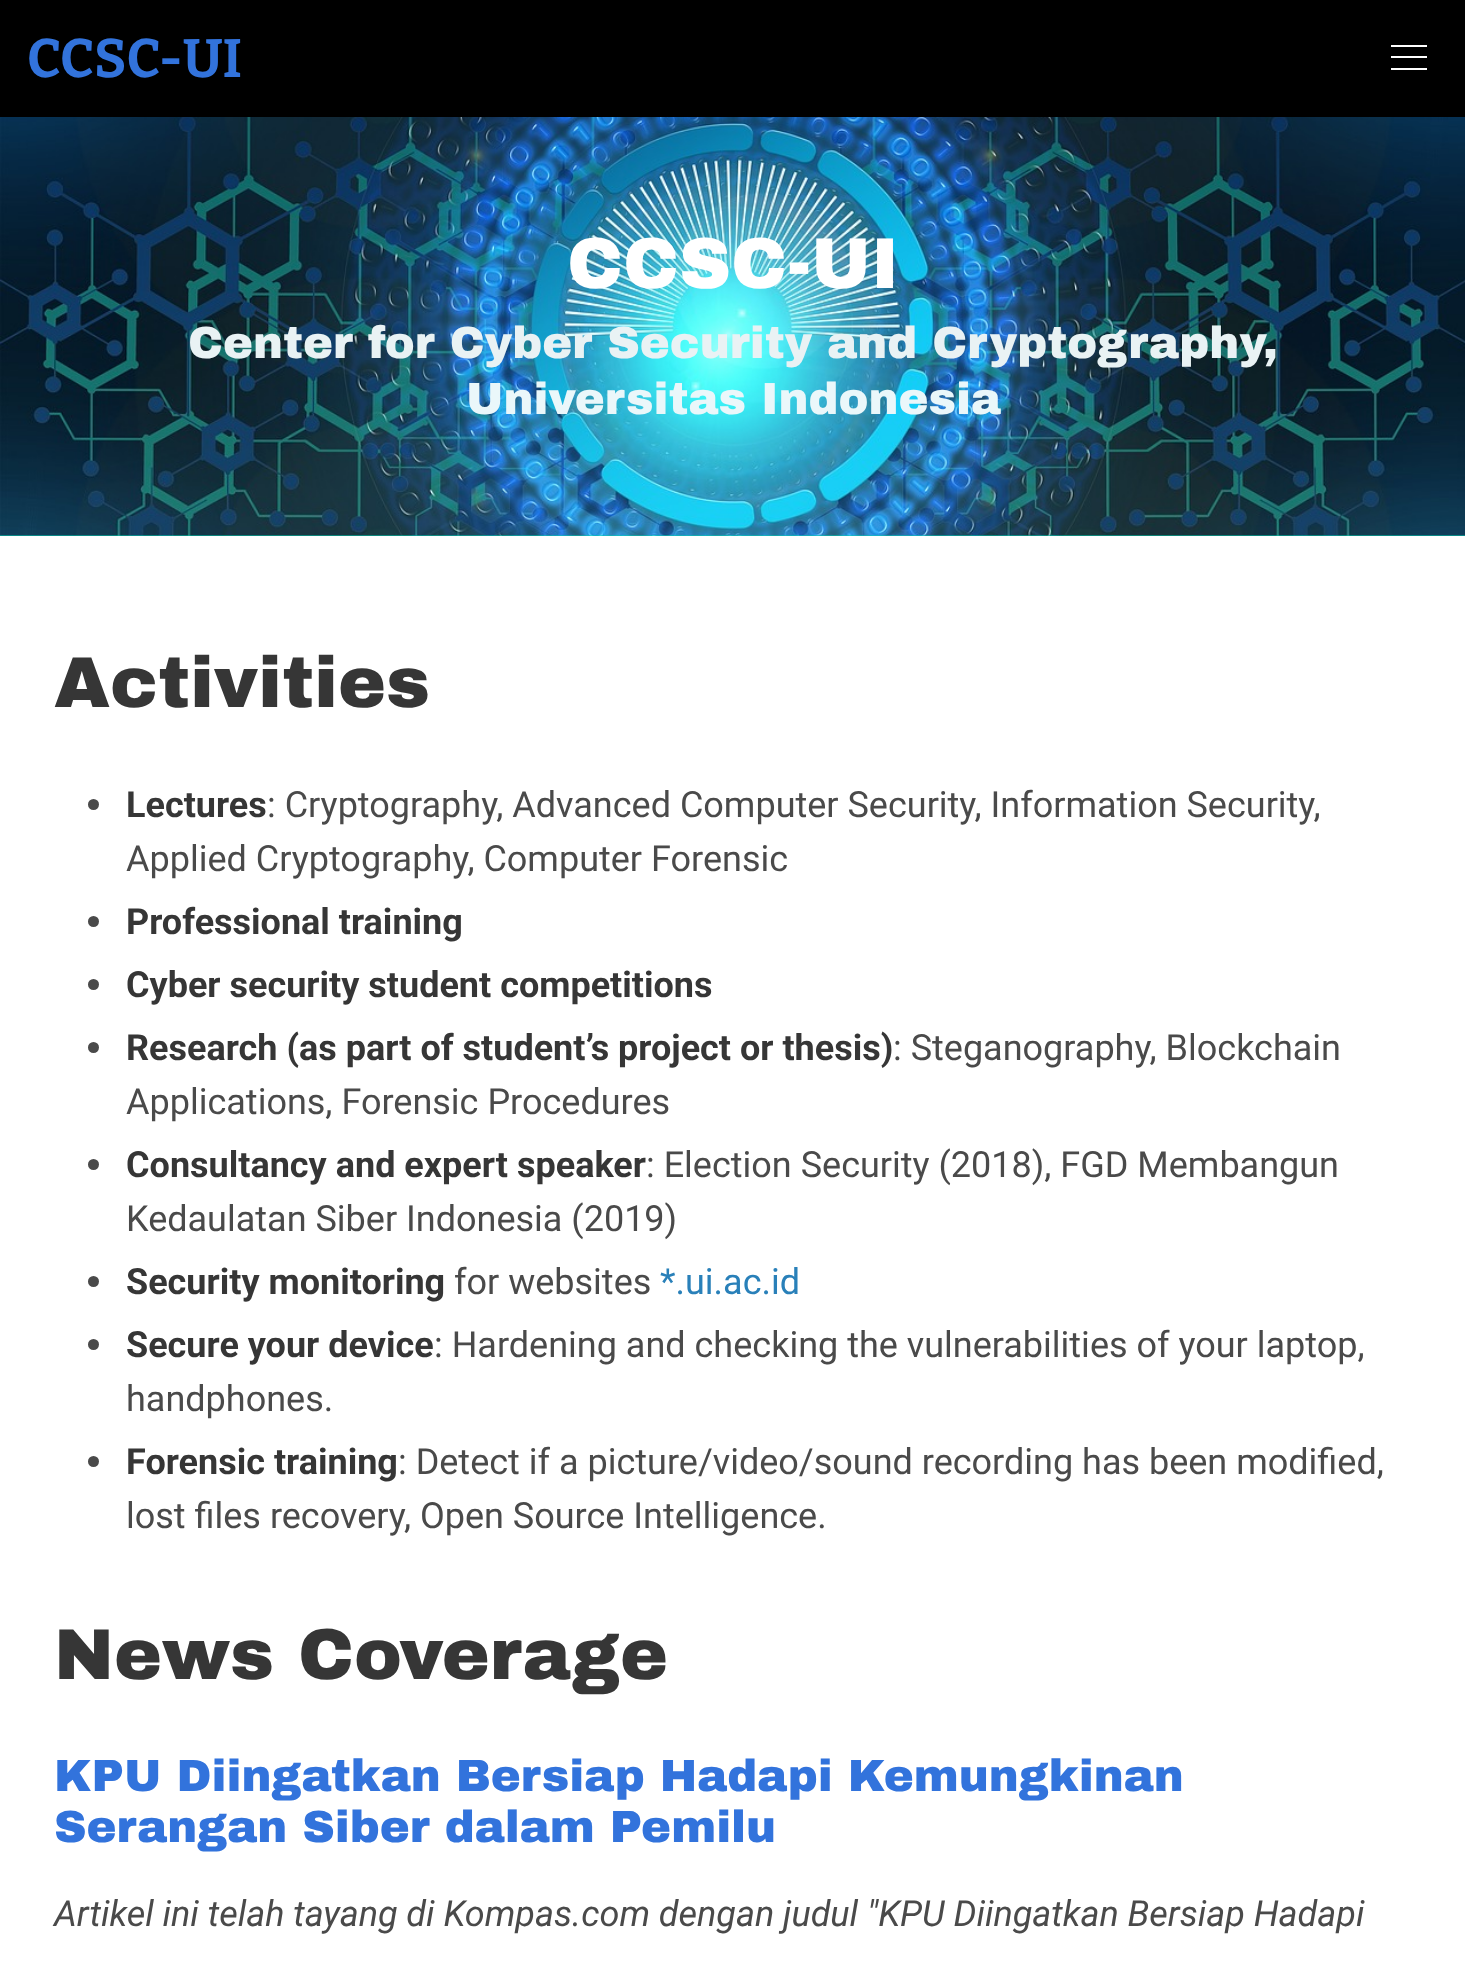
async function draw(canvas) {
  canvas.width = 1465
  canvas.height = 1965
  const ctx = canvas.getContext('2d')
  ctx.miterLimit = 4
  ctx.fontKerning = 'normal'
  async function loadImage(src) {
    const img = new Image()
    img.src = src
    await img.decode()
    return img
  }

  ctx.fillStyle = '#fff'
  ctx.fillRect(0, 0, 1465, 1965)
  ctx.fillStyle = '#000'
  ctx.fillRect(0, 0, 1465, 117)
  ctx.font = 'bold 54px Bitter'
  ctx.fillStyle = '#3273dc'
  ctx.fillText('CCSC-UI', 27, 77)
  ctx.fillStyle = '#fff'
  ctx.fillRect(1391, 45, 36, 2)
  ctx.fillRect(1391, 56, 36, 2)
  ctx.fillRect(1391, 68, 36, 2)
  ctx.fillStyle = '#00d1b2'
  ctx.fillRect(0, 535, 1465, 1)
  ctx.drawImage(await loadImage('image0.png'), 0, 117, 1465, 419)
  ctx.font = '900 72px Archivo Black'
  ctx.fillStyle = '#fff'
  ctx.fillText('CCSC-UI', 567, 288)
  ctx.font = '900 45px Archivo Black'
  ctx.fillStyle = '#e9f2f4'
  ctx.fillText('Center for Cyber Security and Cryptography,', 188, 358)
  ctx.fillStyle = '#eaf7fa'
  ctx.fillText('Universitas Indonesia', 466, 414)
  ctx.font = '900 72px Archivo Black'
  ctx.fillStyle = '#363636'
  ctx.fillText('Activities', 54, 707)
  ctx.fillStyle = '#4a4a4a'
  ctx.beginPath()
  ctx.arc(93.5, 804.5, 5.5, 0, 2 * Math.PI)
  ctx.fill()
  ctx.font = 'bold 36px Roboto'
  ctx.fillStyle = '#363636'
  ctx.fillText('Lectures', 126, 817)
  ctx.font = '36px Roboto'
  ctx.fillStyle = '#4a4a4a'
  ctx.fillText(': Cryptography, Advanced Computer Security, Information Security,', 267, 817)
  ctx.fillText('Applied Cryptography, Computer Forensic', 126, 871)
  ctx.beginPath()
  ctx.arc(93.5, 921.5, 5.5, 0, 2 * Math.PI)
  ctx.fill()
  ctx.font = 'bold 36px Roboto'
  ctx.fillStyle = '#363636'
  ctx.fillText('Professional training', 126, 934)
  ctx.fillStyle = '#4a4a4a'
  ctx.beginPath()
  ctx.arc(93.5, 984.5, 5.5, 0, 2 * Math.PI)
  ctx.fill()
  ctx.fillStyle = '#363636'
  ctx.fillText('Cyber security student competitions', 126, 997)
  ctx.fillStyle = '#4a4a4a'
  ctx.beginPath()
  ctx.arc(93.5, 1047.5, 5.5, 0, 2 * Math.PI)
  ctx.fill()
  ctx.fillStyle = '#363636'
  ctx.fillText('Research (as part of student’s project or thesis)', 126, 1060)
  ctx.font = '36px Roboto'
  ctx.fillStyle = '#4a4a4a'
  ctx.fillText(': Steganography, Blockchain', 893, 1060)
  ctx.fillText('Applications, Forensic Procedures', 126, 1114)
  ctx.beginPath()
  ctx.arc(93.5, 1164.5, 5.5, 0, 2 * Math.PI)
  ctx.fill()
  ctx.font = 'bold 36px Roboto'
  ctx.fillStyle = '#363636'
  ctx.fillText('Consultancy and expert speaker', 126, 1177)
  ctx.font = '36px Roboto'
  ctx.fillStyle = '#4a4a4a'
  ctx.fillText(': Election Security (2018), FGD Membangun', 646, 1177)
  ctx.fillText('Kedaulatan Siber Indonesia (2019)', 126, 1231)
  ctx.beginPath()
  ctx.arc(93.5, 1281.5, 5.5, 0, 2 * Math.PI)
  ctx.fill()
  ctx.font = 'bold 36px Roboto'
  ctx.fillStyle = '#363636'
  ctx.fillText('Security monitoring', 126, 1294)
  ctx.font = '36px Roboto'
  ctx.fillStyle = '#4a4a4a'
  ctx.fillText('for websites', 454, 1294)
  ctx.fillStyle = '#2980b9'
  ctx.fillText('*.ui.ac.id', 660, 1294)
  ctx.fillStyle = '#4a4a4a'
  ctx.beginPath()
  ctx.arc(93.5, 1344.5, 5.5, 0, 2 * Math.PI)
  ctx.fill()
  ctx.font = 'bold 36px Roboto'
  ctx.fillStyle = '#363636'
  ctx.fillText('Secure your device', 126, 1357)
  ctx.font = '36px Roboto'
  ctx.fillStyle = '#4a4a4a'
  ctx.fillText(': Hardening and checking the vulnerabilities of your laptop,', 434, 1357)
  ctx.fillText('handphones.', 126, 1411)
  ctx.beginPath()
  ctx.arc(93.5, 1461.5, 5.5, 0, 2 * Math.PI)
  ctx.fill()
  ctx.font = 'bold 36px Roboto'
  ctx.fillStyle = '#363636'
  ctx.fillText('Forensic training', 126, 1474)
  ctx.font = '36px Roboto'
  ctx.fillStyle = '#4a4a4a'
  ctx.fillText(': Detect if a picture/video/sound recording has been modified,', 398, 1474)
  ctx.fillText('lost files recovery, Open Source Intelligence.', 126, 1528)
  ctx.font = '900 72px Archivo Black'
  ctx.fillStyle = '#363636'
  ctx.fillText('News Coverage', 54, 1679)
  ctx.font = '900 45px Archivo Black'
  ctx.fillStyle = '#3273dc'
  ctx.fillText('KPU Diingatkan Bersiap Hadapi Kemungkinan', 54, 1791)
  ctx.fillText('Serangan Siber dalam Pemilu', 54, 1842)
  ctx.font = 'italic 36px Roboto'
  ctx.fillStyle = '#4a4a4a'
  ctx.fillText('Artikel ini telah tayang di Kompas.com dengan judul "KPU Diingatkan Bersiap Hadapi', 54, 1926)
}

draw(document.querySelector('canvas'))
